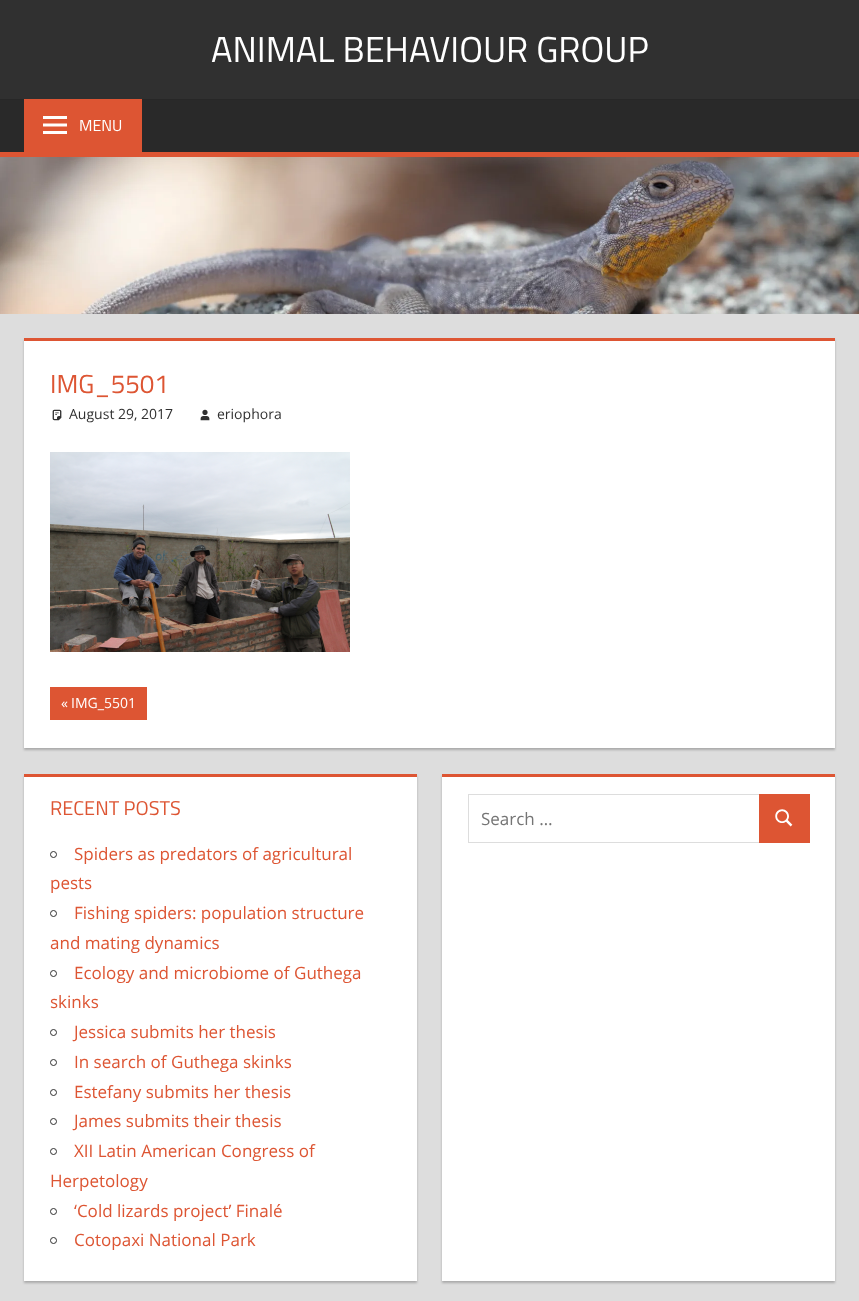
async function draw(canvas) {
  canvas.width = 859
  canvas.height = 1301
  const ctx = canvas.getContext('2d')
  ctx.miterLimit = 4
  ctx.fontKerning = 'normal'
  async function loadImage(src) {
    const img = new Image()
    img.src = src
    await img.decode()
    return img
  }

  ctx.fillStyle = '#ddd'
  ctx.fillRect(0, 0, 859, 1301)
  ctx.fillStyle = '#303030'
  ctx.fillRect(0, 0, 859, 99)
  ctx.font = '36px Titillium Web'
  ctx.fillStyle = '#fff'
  ctx.fillText('ANIMAL BEHAVIOUR GROUP', 211, 62)
  ctx.fillStyle = '#292929'
  ctx.fillRect(0, 100, 859, 52)
  ctx.fillStyle = '#272727'
  ctx.fillRect(0, 99, 859, 1)
  ctx.fillStyle = '#d53'
  ctx.fillRect(0, 152, 859, 5)
  ctx.fillRect(24, 99, 118, 53)
  ctx.drawImage(await loadImage('image0.png'), 43, 116, 24, 18)
  ctx.font = '16px Titillium Web'
  ctx.fillStyle = '#fff'
  ctx.fillText('MENU', 79, 131)
  ctx.drawImage(await loadImage('image1.png'), 0, 157, 859, 157)
  ctx.fillStyle = '#aaa'
  ctx.filter = 'blur(1px)'
  ctx.beginPath()
  ctx.rect(24, 340, 811, 410)
  ctx.fill()
  ctx.filter = 'none'
  ctx.fillStyle = '#fff'
  ctx.fillRect(24, 341, 811, 407)
  ctx.fillStyle = '#d53'
  ctx.fillRect(24, 338, 811, 3)
  ctx.font = '26px Titillium Web'
  ctx.fillText('IMG_5501', 50, 393)
  ctx.drawImage(await loadImage('image2.png'), 52, 409, 10, 12)
  ctx.font = '14px Open Sans'
  ctx.fillStyle = '#303030'
  ctx.fillText('August 29, 2017', 69, 419)
  ctx.drawImage(await loadImage('image3.png'), 200, 409, 10, 12)
  ctx.fillText('eriophora', 217, 419)
  ctx.drawImage(await loadImage('image4.png'), 50, 452, 300, 200)
  ctx.fillStyle = '#d53'
  ctx.fillRect(50, 687, 97, 33)
  ctx.fillStyle = '#fff'
  ctx.fillText('«', 61, 708)
  ctx.fillText('IMG_5501', 71, 708)
  ctx.fillStyle = '#aaa'
  ctx.filter = 'blur(1px)'
  ctx.beginPath()
  ctx.rect(24, 776, 393, 507)
  ctx.fill()
  ctx.filter = 'none'
  ctx.fillStyle = '#fff'
  ctx.fillRect(24, 777, 393, 504)
  ctx.fillStyle = '#d53'
  ctx.fillRect(24, 774, 393, 3)
  ctx.font = '20px Titillium Web'
  ctx.fillText('RECENT POSTS', 50, 815)
  ctx.beginPath()
  ctx.arc(53.5, 854.5, 3, 0, 2 * Math.PI)
  ctx.strokeStyle = '#303030'
  ctx.stroke()
  ctx.font = '17px Open Sans'
  ctx.fillText('Spiders as predators of agricultural', 74, 860)
  ctx.fillText('pests', 50, 889)
  ctx.beginPath()
  ctx.arc(53.5, 913.5, 3, 0, 2 * Math.PI)
  ctx.stroke()
  ctx.fillText('Fishing spiders: population structure', 74, 919)
  ctx.fillText('and mating dynamics', 50, 949)
  ctx.beginPath()
  ctx.arc(53.5, 973.5, 3, 0, 2 * Math.PI)
  ctx.stroke()
  ctx.fillText('Ecology and microbiome of Guthega', 74, 979)
  ctx.fillText('skinks', 50, 1008)
  ctx.beginPath()
  ctx.arc(53.5, 1032.5, 3, 0, 2 * Math.PI)
  ctx.stroke()
  ctx.fillText('Jessica submits her thesis', 74, 1038)
  ctx.beginPath()
  ctx.arc(53.5, 1062.5, 3, 0, 2 * Math.PI)
  ctx.stroke()
  ctx.fillText('In search of Guthega skinks', 74, 1068)
  ctx.beginPath()
  ctx.arc(53.5, 1092.5, 3, 0, 2 * Math.PI)
  ctx.stroke()
  ctx.fillText('Estefany submits her thesis', 74, 1098)
  ctx.beginPath()
  ctx.arc(53.5, 1121.5, 3, 0, 2 * Math.PI)
  ctx.stroke()
  ctx.fillText('James submits their thesis', 74, 1127)
  ctx.beginPath()
  ctx.arc(53.5, 1151.5, 3, 0, 2 * Math.PI)
  ctx.stroke()
  ctx.fillText('XII Latin American Congress of', 74, 1157)
  ctx.fillText('Herpetology', 50, 1187)
  ctx.beginPath()
  ctx.arc(53.5, 1211.5, 3, 0, 2 * Math.PI)
  ctx.stroke()
  ctx.fillText('‘Cold lizards project’ Finalé', 74, 1217)
  ctx.beginPath()
  ctx.arc(53.5, 1240.5, 3, 0, 2 * Math.PI)
  ctx.stroke()
  ctx.fillText('Cotopaxi National Park', 74, 1246)
  ctx.fillStyle = '#aaa'
  ctx.filter = 'blur(1px)'
  ctx.beginPath()
  ctx.rect(442, 776, 393, 507)
  ctx.fill()
  ctx.filter = 'none'
  ctx.fillStyle = '#fff'
  ctx.fillRect(442, 777, 393, 504)
  ctx.fillStyle = '#d53'
  ctx.fillRect(442, 774, 393, 3)
  ctx.strokeStyle = '#ddd'
  ctx.strokeRect(468.5, 794.5, 291, 48)
  ctx.fillStyle = '#757575'
  ctx.fillText('Search …', 481, 825)
  ctx.fillStyle = '#d53'
  ctx.fillRect(759, 794, 51, 49)
  ctx.drawImage(await loadImage('image5.png'), 775, 809, 18, 18)
}

draw(document.querySelector('canvas'))
